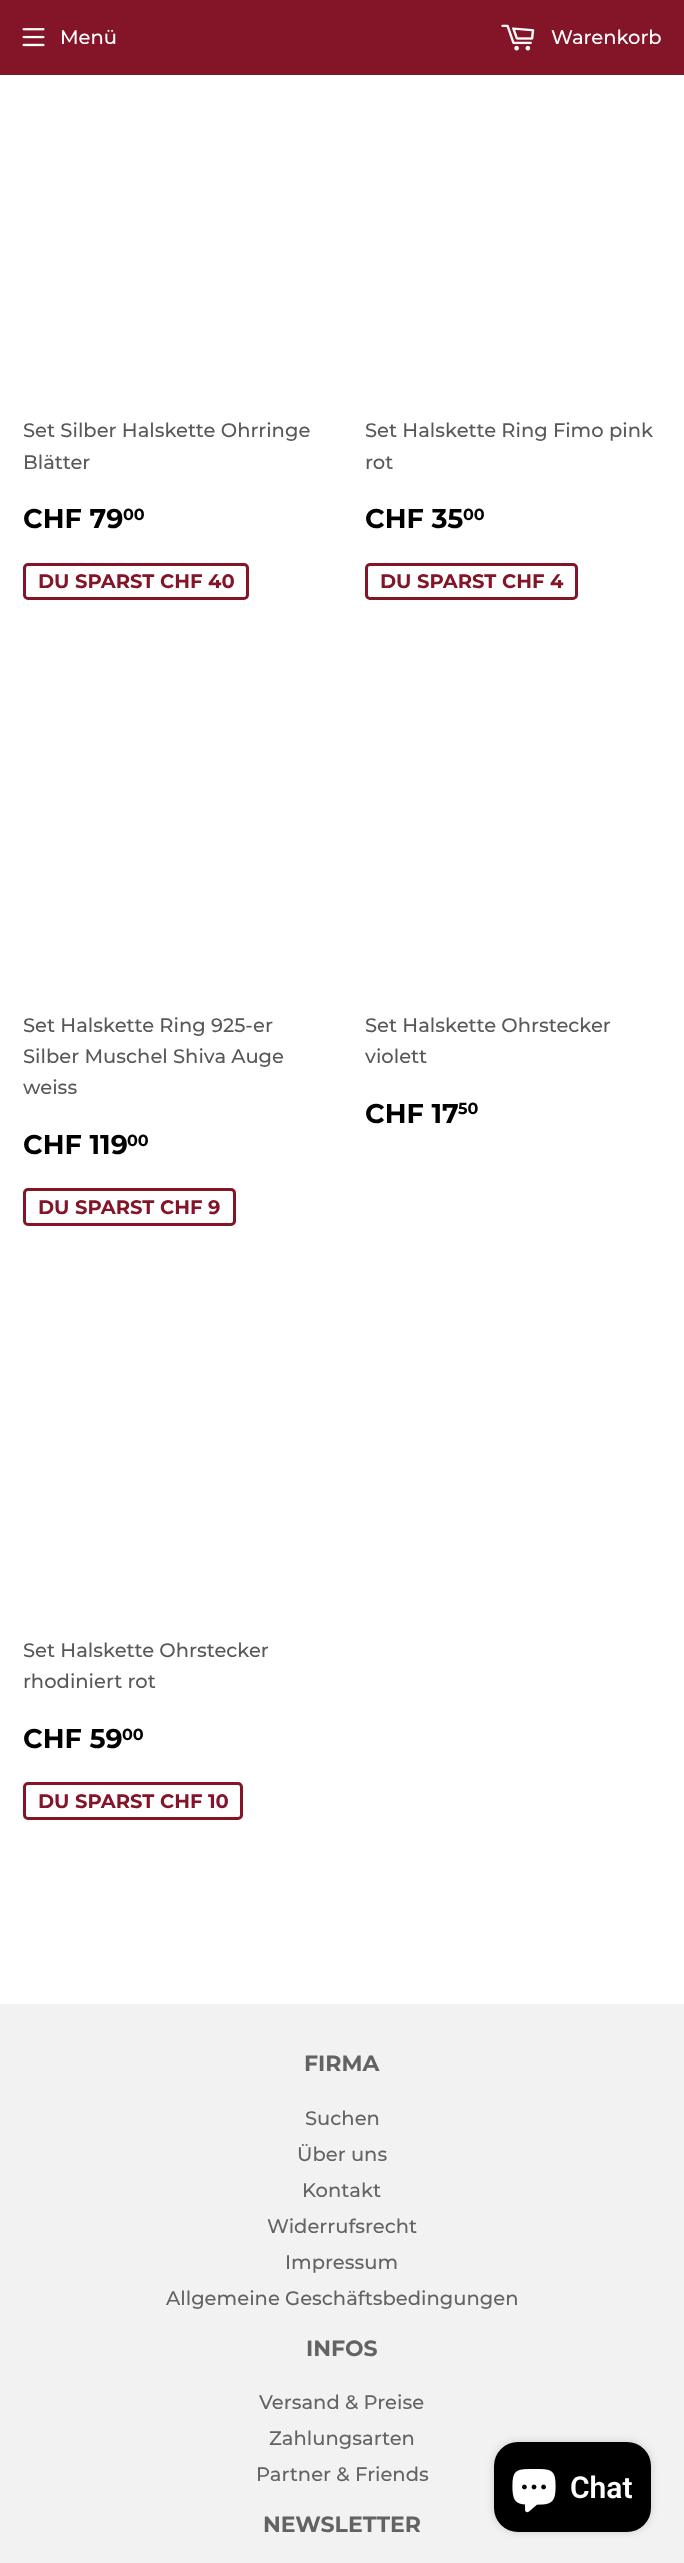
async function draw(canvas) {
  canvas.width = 684
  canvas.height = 2563
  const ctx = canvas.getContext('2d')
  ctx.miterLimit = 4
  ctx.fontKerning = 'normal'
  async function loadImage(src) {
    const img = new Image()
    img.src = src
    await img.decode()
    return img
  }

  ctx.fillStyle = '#fff'
  ctx.fillRect(0, 0, 684, 2563)
  ctx.fillStyle = '#841428'
  ctx.fillRect(0, 0, 684, 75)
  ctx.drawImage(await loadImage('image0.png'), 22, 28, 23, 19)
  ctx.font = '500 19.5px Montserrat'
  ctx.fillStyle = '#fff'
  ctx.fillText('Menü', 60, 44)
  ctx.drawImage(await loadImage('image1.png'), 501, 24, 34, 27)
  ctx.fillText('Warenkorb', 551, 44)
  ctx.fillStyle = '#585858'
  ctx.fillText('Set Silber Halskette Ohrringe', 23, 437)
  ctx.fillText('Blätter', 23, 469)
  ctx.font = 'bold 27px Montserrat'
  ctx.fillStyle = '#000'
  ctx.fillText('CHF 79', 23, 528)
  ctx.font = 'bold 16px Montserrat'
  ctx.fillText('00', 123, 520)
  ctx.beginPath()
  ctx.roundRect(24.5, 564.5, 223, 34, 3.5)
  ctx.strokeStyle = '#841428'
  ctx.lineWidth = 3
  ctx.stroke()
  ctx.font = 'bold 19.5px Montserrat'
  ctx.fillStyle = '#841428'
  ctx.fillText('DU SPARST CHF 40', 38, 588)
  ctx.font = '500 19.5px Montserrat'
  ctx.fillStyle = '#585858'
  ctx.fillText('Set Halskette Ring Fimo pink', 365, 437)
  ctx.fillText('rot', 365, 469)
  ctx.font = 'bold 27px Montserrat'
  ctx.fillStyle = '#000'
  ctx.fillText('CHF 35', 365, 528)
  ctx.font = 'bold 16px Montserrat'
  ctx.fillText('00', 463, 520)
  ctx.beginPath()
  ctx.roundRect(366.5, 564.5, 210, 34, 3.5)
  ctx.stroke()
  ctx.font = 'bold 19.5px Montserrat'
  ctx.fillStyle = '#841428'
  ctx.fillText('DU SPARST CHF 4', 380, 588)
  ctx.font = '500 19.5px Montserrat'
  ctx.fillStyle = '#585858'
  ctx.fillText('Set Halskette Ring 925-er', 23, 1032)
  ctx.fillText('Silber Muschel Shiva Auge', 23, 1063)
  ctx.fillText('weiss', 23, 1094)
  ctx.font = 'bold 27px Montserrat'
  ctx.fillStyle = '#000'
  ctx.fillText('CHF 119', 23, 1154)
  ctx.font = 'bold 16px Montserrat'
  ctx.fillText('00', 127, 1146)
  ctx.beginPath()
  ctx.roundRect(24.5, 1189.5, 210, 35, 3.5)
  ctx.stroke()
  ctx.font = 'bold 19.5px Montserrat'
  ctx.fillStyle = '#841428'
  ctx.fillText('DU SPARST CHF 9', 38, 1214)
  ctx.font = '500 19.5px Montserrat'
  ctx.fillStyle = '#585858'
  ctx.fillText('Set Halskette Ohrstecker', 365, 1032)
  ctx.fillText('violett', 365, 1063)
  ctx.font = 'bold 27px Montserrat'
  ctx.fillStyle = '#000'
  ctx.fillText('CHF 17', 365, 1123)
  ctx.font = 'bold 16px Montserrat'
  ctx.fillText('50', 458, 1114)
  ctx.font = '500 19.5px Montserrat'
  ctx.fillStyle = '#585858'
  ctx.fillText('Set Halskette Ohrstecker', 23, 1657)
  ctx.fillText('rhodiniert rot', 23, 1688)
  ctx.font = 'bold 27px Montserrat'
  ctx.fillStyle = '#000'
  ctx.fillText('CHF 59', 23, 1748)
  ctx.font = 'bold 16px Montserrat'
  ctx.fillText('00', 122, 1740)
  ctx.beginPath()
  ctx.roundRect(24.5, 1783.5, 217, 35, 3.5)
  ctx.stroke()
  ctx.font = 'bold 19.5px Montserrat'
  ctx.fillStyle = '#841428'
  ctx.fillText('DU SPARST CHF 10', 38, 1808)
  ctx.fillStyle = '#f2f2f2'
  ctx.fillRect(0, 2004, 684, 559)
  ctx.font = 'bold 22px Montserrat'
  ctx.fillStyle = '#636363'
  ctx.fillText('FIRMA', 304, 2071)
  ctx.font = '500 19.5px Montserrat'
  ctx.fillText('Suchen', 305, 2125)
  ctx.fillText('Über uns', 297, 2161)
  ctx.fillText('Kontakt', 302, 2197)
  ctx.fillText('Widerrufsrecht', 267, 2233)
  ctx.fillText('Impressum', 285, 2269)
  ctx.fillText('Allgemeine Geschäftsbedingungen', 166, 2305)
  ctx.font = 'bold 22px Montserrat'
  ctx.fillText('INFOS', 306, 2356)
  ctx.font = '500 19.5px Montserrat'
  ctx.fillText('Versand & Preise', 259, 2409)
  ctx.fillText('Zahlungsarten', 269, 2445)
  ctx.fillText('Partner & Friends', 256, 2481)
  ctx.font = 'bold 22px Montserrat'
  ctx.fillText('NEWSLETTER', 263, 2532)
  ctx.fillStyle = '#00000026'
  ctx.filter = 'blur(4px)'
  ctx.beginPath()
  ctx.roundRect(494, 2442, 157, 90, 24)
  ctx.fill()
  ctx.filter = 'none'
  ctx.fillStyle = '#000'
  ctx.beginPath()
  ctx.roundRect(494, 2442, 157, 90, 24)
  ctx.fill()
  ctx.drawImage(await loadImage('image2.png'), 512, 2469, 44, 44)
  ctx.font = '600 30px Roboto'
  ctx.fillStyle = '#fff'
  ctx.fillText('Chat', 570, 2498)
}

draw(document.querySelector('canvas'))
